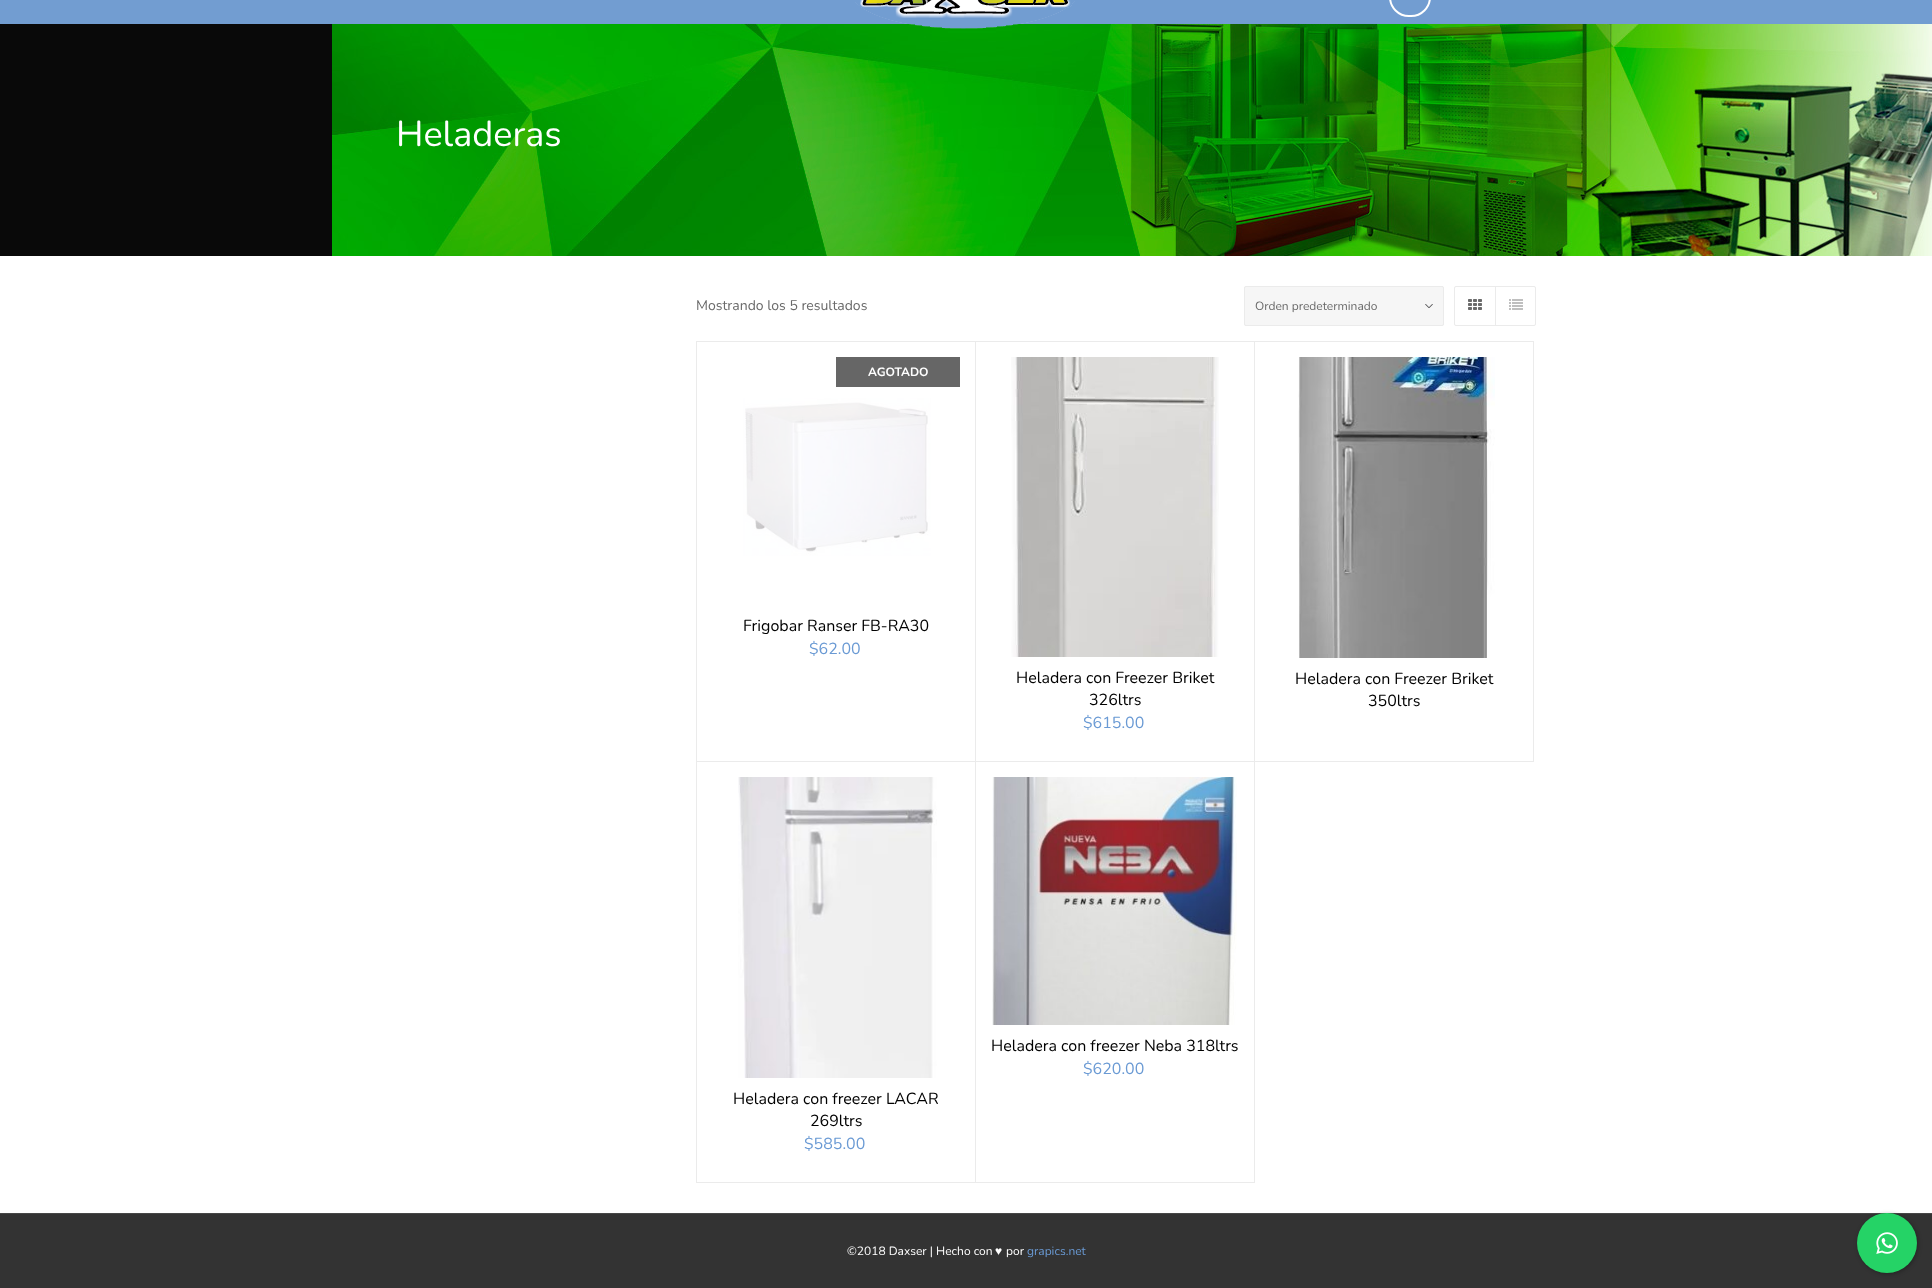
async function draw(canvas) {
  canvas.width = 1932
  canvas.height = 1288
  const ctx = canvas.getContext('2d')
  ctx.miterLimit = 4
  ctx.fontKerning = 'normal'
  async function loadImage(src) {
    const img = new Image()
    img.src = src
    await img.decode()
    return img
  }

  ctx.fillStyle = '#fff'
  ctx.fillRect(0, 0, 1932, 1288)
  ctx.fillStyle = '#729dd1'
  ctx.fillRect(0, 0, 1932, 24)
  ctx.drawImage(await loadImage('image1.png'), 332, 24, 1600, 232)
  ctx.drawImage(await loadImage('image0.png'), 855, 0, 220, 29)
  ctx.beginPath()
  ctx.roundRect(1390, -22, 40, 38, 20)
  ctx.strokeStyle = '#fff'
  ctx.lineWidth = 2
  ctx.stroke()
  ctx.fillStyle = '#090909'
  ctx.fillRect(0, 24, 332, 232)
  ctx.font = '36px Nunito'
  ctx.fillStyle = '#fff'
  ctx.fillText('Heladeras', 396, 146)
  ctx.font = '14px Nunito'
  ctx.fillStyle = '#6a6a6a'
  ctx.fillText('Mostrando los 5 resultados', 696, 310)
  ctx.fillStyle = '#f6f6f6'
  ctx.beginPath()
  ctx.roundRect(1244, 286, 200, 40, 2)
  ctx.fill()
  ctx.drawImage(await loadImage('image2.png'), 1425, 304, 8, 4)
  ctx.beginPath()
  ctx.roundRect(1244.5, 286.5, 199, 39, 1.5)
  ctx.strokeStyle = '#ebebeb'
  ctx.lineWidth = 1
  ctx.stroke()
  ctx.font = '12px Nunito'
  ctx.fillStyle = '#6a6a6a'
  ctx.fillText('Orden predeterminado', 1255, 310)
  ctx.beginPath()
  ctx.roundRect(1454.5, 286.5, 81, 39, 1.5)
  ctx.stroke()
  ctx.drawImage(await loadImage('image3.png'), 1468, 299, 14, 11)
  ctx.fillStyle = '#ebebeb'
  ctx.fillRect(1495, 287, 1, 38)
  ctx.drawImage(await loadImage('image4.png'), 1509, 299, 14, 11)
  ctx.strokeRect(696.5, 341.5, 279, 420)
  ctx.fillStyle = '#666'
  ctx.fillRect(836, 357, 124, 30)
  ctx.font = 'bold 12px Nunito'
  ctx.fillStyle = '#fff'
  ctx.fillText('AGOTADO', 868, 376)
  ctx.drawImage(await loadImage('image5.png'), 743, 398, 188, 158)
  ctx.font = '16px Nunito'
  ctx.fillStyle = '#010101'
  ctx.fillText('Frigobar Ranser FB-RA30', 743, 631)
  ctx.fillStyle = '#6a9ad4'
  ctx.fillText('$62.00', 809, 654)
  ctx.strokeRect(975.5, 341.5, 279, 420)
  ctx.drawImage(await loadImage('image6.png'), 1011, 357, 208, 300)
  ctx.fillStyle = '#010101'
  ctx.fillText('Heladera con Freezer Briket', 1016, 683)
  ctx.fillText('326ltrs', 1089, 705)
  ctx.fillStyle = '#6a9ad4'
  ctx.fillText('$615.00', 1083, 728)
  ctx.strokeRect(1254.5, 341.5, 279, 420)
  ctx.drawImage(await loadImage('image7.png'), 1298, 357, 197, 301)
  ctx.fillStyle = '#010101'
  ctx.fillText('Heladera con Freezer Briket', 1295, 684)
  ctx.fillText('350ltrs', 1368, 706)
  ctx.strokeRect(696.5, 761.5, 279, 421)
  ctx.strokeRect(975.5, 761.5, 279, 421)
  ctx.drawImage(await loadImage('image8.png'), 992, 777, 245, 248)
  ctx.fillText('Heladera con freezer Neba 318ltrs', 991, 1051)
  ctx.fillStyle = '#6a9ad4'
  ctx.fillText('$620.00', 1083, 1074)
  ctx.drawImage(await loadImage('image9.png'), 738, 777, 199, 301)
  ctx.fillStyle = '#010101'
  ctx.fillText('Heladera con freezer LACAR', 733, 1104)
  ctx.fillText('269ltrs', 810, 1126)
  ctx.fillStyle = '#6a9ad4'
  ctx.fillText('$585.00', 804, 1149)
  ctx.fillStyle = '#333'
  ctx.fillRect(0, 1214, 1932, 74)
  ctx.fillStyle = '#474747'
  ctx.fillRect(0, 1213, 1932, 1)
  ctx.font = '12px Nunito'
  ctx.fillStyle = '#fff'
  ctx.fillText('©2018 Daxser | Hecho con', 847, 1255)
  ctx.font = '12px Liberation Serif'
  ctx.fillText('♥', 995, 1255)
  ctx.font = '12px Nunito'
  ctx.fillText('por', 1006, 1255)
  ctx.fillStyle = '#6a9ad4'
  ctx.fillText('grapics.net', 1027, 1255)
  ctx.fillStyle = '#0000004d'
  ctx.filter = 'blur(2px)'
  ctx.beginPath()
  ctx.roundRect(1858, 1214, 60, 60, 30)
  ctx.fill()
  ctx.filter = 'none'
  ctx.fillStyle = '#25d366'
  ctx.beginPath()
  ctx.arc(1887, 1243, 30, 0, 2 * Math.PI)
  ctx.fill()
  ctx.drawImage(await loadImage('image10.png'), 1876, 1232, 22, 22)
}

draw(document.querySelector('canvas'))
